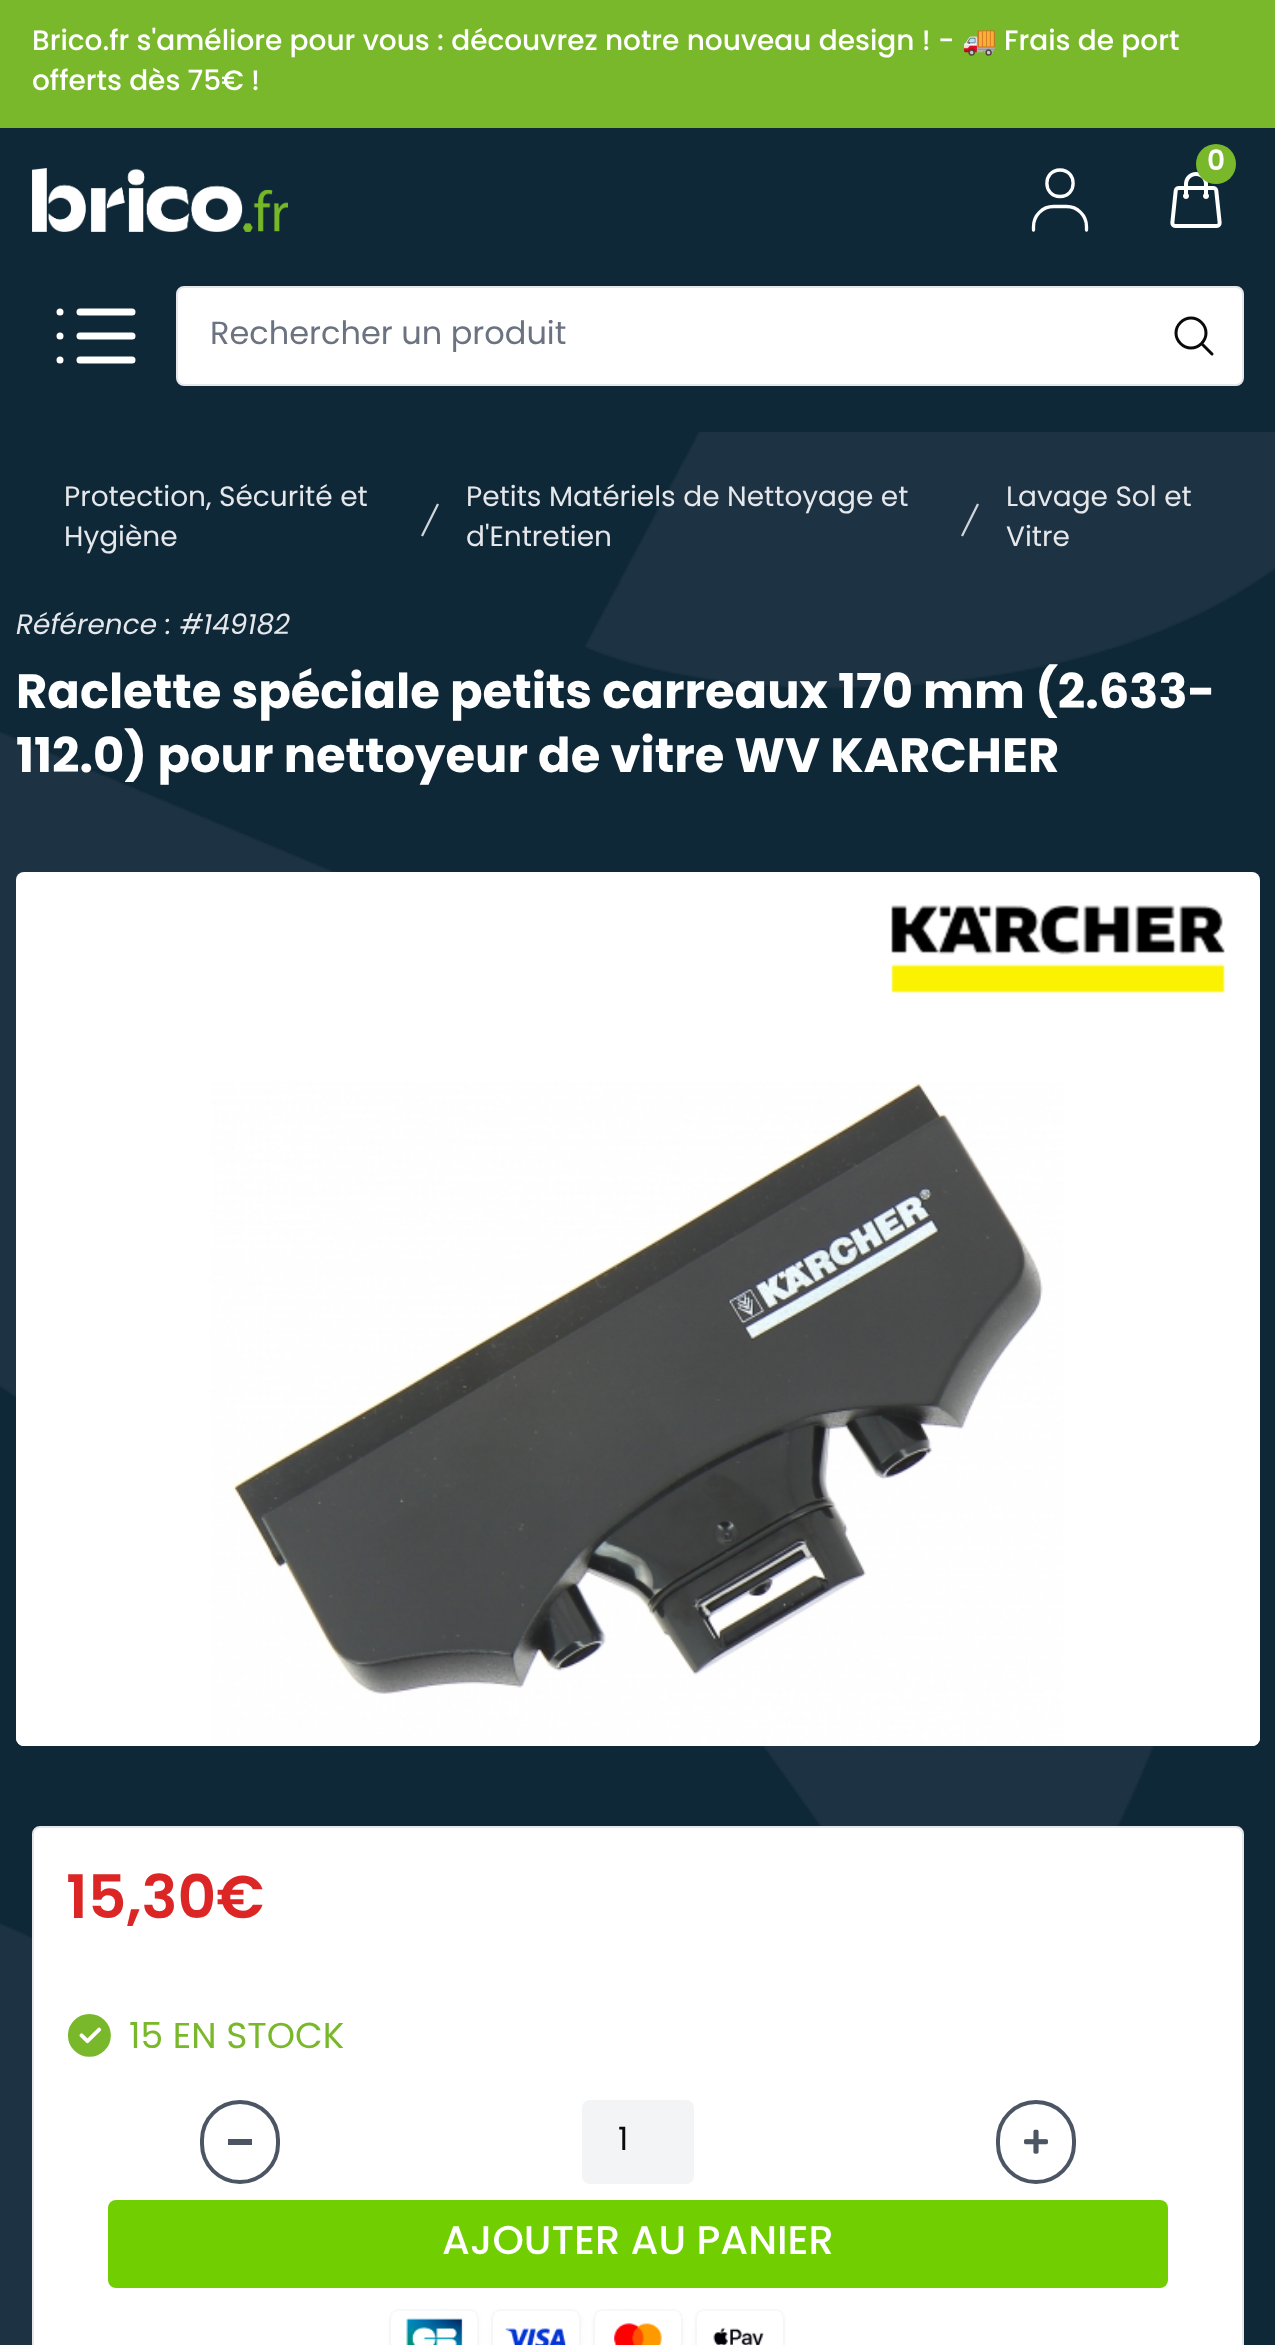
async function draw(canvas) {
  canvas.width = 1275
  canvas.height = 2345
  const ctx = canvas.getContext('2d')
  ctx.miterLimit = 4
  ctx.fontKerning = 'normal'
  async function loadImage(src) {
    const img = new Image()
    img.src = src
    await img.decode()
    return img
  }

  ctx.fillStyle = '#0e2838'
  ctx.fillRect(0, 0, 1275, 2345)
  ctx.drawImage(await loadImage('image0.png'), 0, 432, 1275, 1913)
  ctx.fillStyle = '#78b82a'
  ctx.fillRect(0, 0, 1275, 128)
  ctx.font = '500 28px Poppins'
  ctx.fillStyle = '#fff'
  ctx.fillText('Brico.fr s\'améliore pour vous : découvrez notre nouveau design ! -', 32, 50)
  ctx.font = '28px Noto Color Emoji'
  ctx.fillText('🚚', 962, 50)
  ctx.font = '500 28px Poppins'
  ctx.fillText('Frais de port', 1004, 50)
  ctx.fillText('offerts dès 75€ !', 32, 90)
  ctx.drawImage(await loadImage('image1.png'), 1170, 172, 52, 56)
  ctx.fillStyle = '#78b82a'
  ctx.beginPath()
  ctx.arc(1216, 164, 20, 0, 2 * Math.PI)
  ctx.fill()
  ctx.font = '600 28px Poppins'
  ctx.fillStyle = '#fff'
  ctx.fillText('0', 1207, 170)
  ctx.beginPath()
  ctx.moveTo(1033.5, 230)
  ctx.lineTo(1033.5, 226.5)
  ctx.bezierCurveTo(1033.5, 215.5, 1042.5, 206.5, 1053.5, 206.5)
  ctx.lineTo(1066.5, 206.5)
  ctx.bezierCurveTo(1077.5, 206.5, 1086.5, 215.5, 1086.5, 226.5)
  ctx.lineTo(1086.5, 230)
  ctx.strokeStyle = '#fff'
  ctx.lineWidth = 3.3
  ctx.lineCap = 'round'
  ctx.stroke()
  ctx.beginPath()
  ctx.moveTo(1060, 196.5)
  ctx.bezierCurveTo(1042.5, 196.5, 1042.5, 170, 1060, 170)
  ctx.bezierCurveTo(1077.5, 170, 1077.5, 196.5, 1060, 196.5)
  ctx.stroke()
  ctx.drawImage(await loadImage('image2.png'), 32, 168, 256, 64)
  ctx.beginPath()
  ctx.moveTo(80, 312)
  ctx.lineTo(132, 312)
  ctx.moveTo(80, 336)
  ctx.lineTo(132, 336)
  ctx.moveTo(80, 360)
  ctx.lineTo(132, 360)
  ctx.moveTo(60, 312)
  ctx.lineTo(60, 312)
  ctx.moveTo(60, 336)
  ctx.lineTo(60, 336)
  ctx.moveTo(60, 360)
  ctx.lineTo(60, 360)
  ctx.lineWidth = 7
  ctx.lineJoin = 'round'
  ctx.stroke()
  ctx.beginPath()
  ctx.roundRect(177, 287, 1066, 98, 7)
  ctx.fill()
  ctx.strokeStyle = '#e5e7eb'
  ctx.lineWidth = 2
  ctx.lineJoin = 'miter'
  ctx.stroke()
  ctx.save()
  ctx.beginPath()
  ctx.rect(210, 320, 890, 32)
  ctx.clip()
  ctx.font = '32px Poppins'
  ctx.fillStyle = '#6b7280'
  ctx.fillText('Rechercher un produit', 210, 344)
  ctx.restore()
  ctx.beginPath()
  ctx.moveTo(1212, 354)
  ctx.lineTo(1201.5, 343.5)
  ctx.moveTo(1201.5, 343.5)
  ctx.bezierCurveTo(1207.5, 337.5, 1207.5, 328.5, 1201.5, 322.5)
  ctx.bezierCurveTo(1195.5, 316.5, 1186.5, 316.5, 1180.5, 322.5)
  ctx.bezierCurveTo(1174.5, 328.5, 1174.5, 337.5, 1180.5, 343.5)
  ctx.bezierCurveTo(1186.5, 349.5, 1195.5, 349.5, 1201.5, 343.5)
  ctx.closePath()
  ctx.strokeStyle = '#0a0a0a'
  ctx.lineWidth = 3
  ctx.lineJoin = 'round'
  ctx.stroke()
  ctx.font = '28px Poppins'
  ctx.fillStyle = '#e5e7eb'
  ctx.fillText('Protection, Sécurité et', 64, 506)
  ctx.fillText('Hygiène', 64, 546)
  ctx.fillStyle = '#d1d5db'
  ctx.beginPath()
  ctx.moveTo(421, 535.5)
  ctx.lineTo(437, 503.5)
  ctx.lineTo(439, 504.5)
  ctx.lineTo(423, 536.5)
  ctx.closePath()
  ctx.fill()
  ctx.fillStyle = '#e5e7eb'
  ctx.fillText('Petits Matériels de Nettoyage et', 466, 506)
  ctx.fillText('d\'Entretien', 466, 546)
  ctx.fillStyle = '#d1d5db'
  ctx.beginPath()
  ctx.moveTo(961, 535.5)
  ctx.lineTo(977, 503.5)
  ctx.lineTo(979, 504.5)
  ctx.lineTo(963, 536.5)
  ctx.closePath()
  ctx.fill()
  ctx.fillStyle = '#e5e7eb'
  ctx.fillText('Lavage Sol et', 1006, 506)
  ctx.fillText('Vitre', 1006, 546)
  ctx.font = 'italic 28px Poppins'
  ctx.fillText('Référence : #149182', 16, 634)
  ctx.font = 'bold 48px Poppins'
  ctx.fillStyle = '#fff'
  ctx.fillText('Raclette spéciale petits carreaux 170 mm (2.633-', 16, 708)
  ctx.fillText('112.0) pour nettoyeur de vitre WV KARCHER', 16, 772)
  ctx.beginPath()
  ctx.roundRect(16, 872, 1244, 874, 8)
  ctx.fill()
  ctx.drawImage(await loadImage('image3.png'), 891, 905, 334, 88)
  ctx.drawImage(await loadImage('image4.png'), 16, 1082, 1244, 664)
  ctx.beginPath()
  ctx.roundRect(33, 1827, 1210, 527, 7)
  ctx.fill()
  ctx.strokeStyle = '#e5e7eb'
  ctx.lineWidth = 2
  ctx.lineJoin = 'miter'
  ctx.stroke()
  ctx.font = '600 60px Poppins'
  ctx.fillStyle = '#dc2626'
  ctx.fillText('15,30€', 66, 1918)
  ctx.drawImage(await loadImage('image5.png'), 67, 2014, 44, 43)
  ctx.font = '36px Poppins'
  ctx.fillStyle = '#78b82a'
  ctx.fillText('15 EN STOCK', 129, 2048)
  ctx.beginPath()
  ctx.roundRect(202, 2102, 76, 80, 38)
  ctx.strokeStyle = '#4b5563'
  ctx.lineWidth = 4
  ctx.stroke()
  ctx.fillStyle = '#4b5563'
  ctx.fillRect(228, 2139, 24, 6)
  ctx.fillStyle = '#f3f4f6'
  ctx.beginPath()
  ctx.roundRect(582, 2100, 112, 84, 8)
  ctx.fill()
  ctx.font = '32px Poppins'
  ctx.fillStyle = '#0a0a0a'
  ctx.fillText('1', 618, 2150)
  ctx.beginPath()
  ctx.roundRect(998, 2102, 76, 80, 38)
  ctx.stroke()
  ctx.drawImage(await loadImage('image6.png'), 1024, 2129, 24, 25)
  ctx.fillStyle = '#71ce00'
  ctx.beginPath()
  ctx.roundRect(108, 2200, 1060, 88, 8)
  ctx.fill()
  ctx.font = '500 40px Poppins'
  ctx.fillStyle = '#fff'
  ctx.fillText('AJOUTER AU PANIER', 442, 2254)
  ctx.drawImage(await loadImage('image7.png'), 388, 2309, 398, 36)
}

draw(document.querySelector('canvas'))
